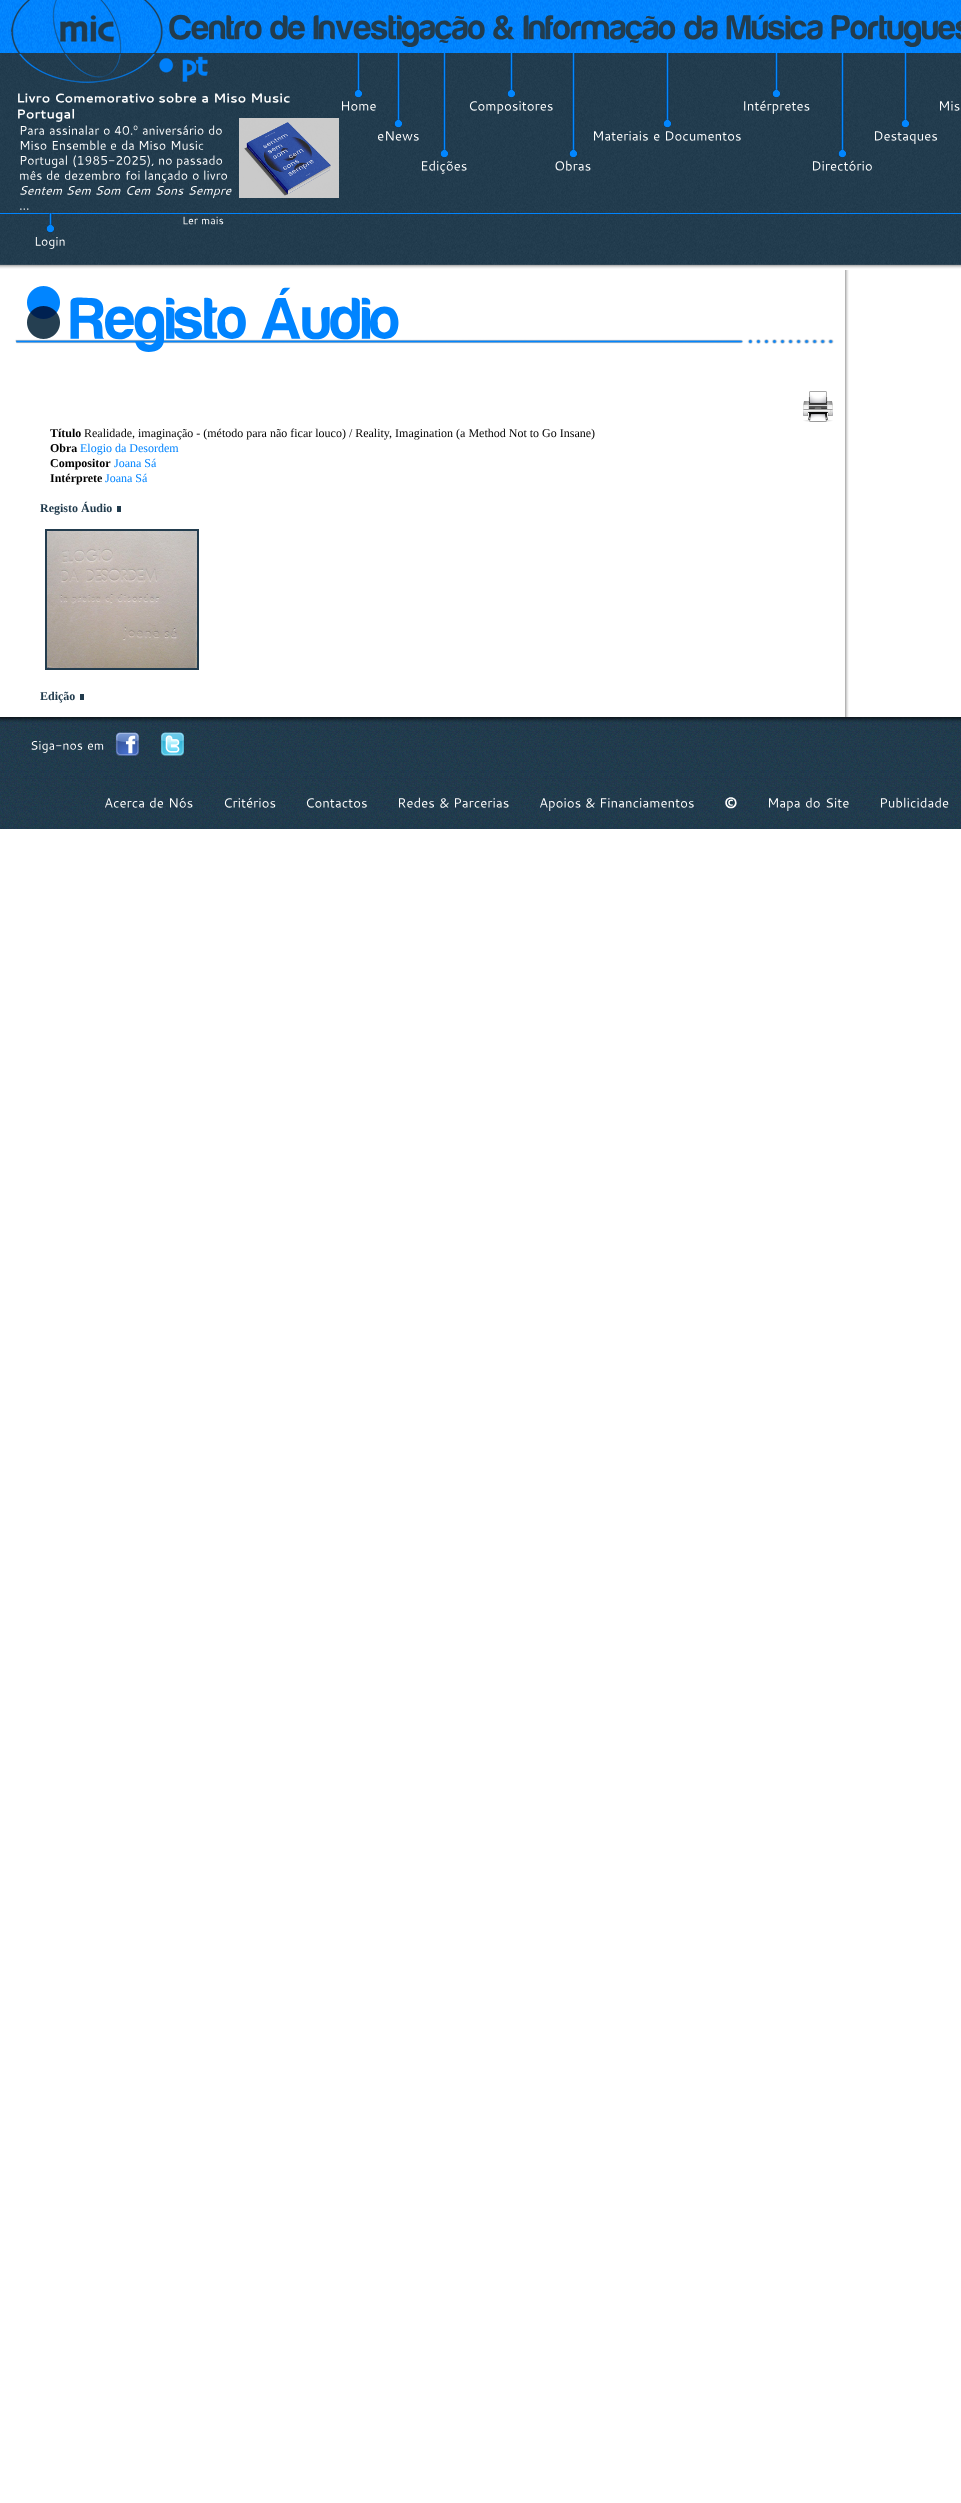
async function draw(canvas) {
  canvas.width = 961
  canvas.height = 2503
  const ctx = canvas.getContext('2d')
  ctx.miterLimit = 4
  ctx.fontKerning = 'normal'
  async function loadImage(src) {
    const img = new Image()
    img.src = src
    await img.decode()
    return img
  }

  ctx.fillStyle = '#fff'
  ctx.fillRect(0, 0, 961, 2503)
  ctx.drawImage(await loadImage('image0.png'), 0, 0, 961, 269)
  ctx.drawImage(await loadImage('image1.png'), 11, 0, 197, 83)
  ctx.drawImage(await loadImage('image2.png'), 18, 93, 32, 10)
  ctx.drawImage(await loadImage('image3.png'), 56, 93, 98, 10)
  ctx.drawImage(await loadImage('image4.png'), 159, 93, 38, 10)
  ctx.drawImage(await loadImage('image5.png'), 202, 96, 6, 7)
  ctx.drawImage(await loadImage('image6.png'), 215, 93, 31, 10)
  ctx.drawImage(await loadImage('image7.png'), 252, 93, 38, 10)
  ctx.drawImage(await loadImage('image8.png'), 18, 108, 57, 14)
  ctx.drawImage(await loadImage('image9.png'), 20, 126, 24, 9)
  ctx.drawImage(await loadImage('image10.png'), 49, 125, 51, 10)
  ctx.drawImage(await loadImage('image11.png'), 103, 128, 7, 7)
  ctx.drawImage(await loadImage('image12.png'), 114, 125, 24, 10)
  ctx.drawImage(await loadImage('image13.png'), 142, 125, 62, 10)
  ctx.drawImage(await loadImage('image14.png'), 208, 125, 14, 10)
  ctx.drawImage(await loadImage('image15.png'), 20, 141, 27, 9)
  ctx.drawImage(await loadImage('image16.png'), 52, 140, 54, 10)
  ctx.drawImage(await loadImage('image17.png'), 110, 143, 6, 7)
  ctx.drawImage(await loadImage('image18.png'), 121, 140, 13, 10)
  ctx.drawImage(await loadImage('image19.png'), 139, 141, 27, 9)
  ctx.drawImage(await loadImage('image20.png'), 171, 141, 33, 9)
  ctx.drawImage(await loadImage('image21.png'), 20, 155, 47, 13)
  ctx.drawImage(await loadImage('image22.png'), 73, 155, 81, 13)
  ctx.drawImage(await loadImage('image23.png'), 159, 158, 13, 7)
  ctx.drawImage(await loadImage('image24.png'), 177, 155, 46, 13)
  ctx.drawImage(await loadImage('image25.png'), 20, 170, 22, 10)
  ctx.drawImage(await loadImage('image26.png'), 46, 170, 14, 10)
  ctx.drawImage(await loadImage('image27.png'), 64, 170, 57, 10)
  ctx.drawImage(await loadImage('image28.png'), 125, 171, 15, 9)
  ctx.drawImage(await loadImage('image29.png'), 145, 170, 43, 13)
  ctx.drawImage(await loadImage('image30.png'), 192, 173, 7, 7)
  ctx.drawImage(await loadImage('image31.png'), 204, 170, 23, 10)
  ctx.drawImage(await loadImage('image32.png'), 20, 186, 43, 9)
  ctx.drawImage(await loadImage('image33.png'), 67, 186, 24, 9)
  ctx.drawImage(await loadImage('image34.png'), 96, 186, 25, 9)
  ctx.drawImage(await loadImage('image35.png'), 127, 186, 24, 9)
  ctx.drawImage(await loadImage('image36.png'), 156, 186, 28, 9)
  ctx.drawImage(await loadImage('image37.png'), 189, 186, 43, 12)
  ctx.drawImage(await loadImage('image38.png'), 20, 208, 9, 2)
  ctx.drawImage(await loadImage('image39.png'), 183, 216, 15, 9)
  ctx.drawImage(await loadImage('image40.png'), 202, 216, 22, 9)
  ctx.drawImage(await loadImage('image41.png'), 239, 118, 100, 80)
  ctx.drawImage(await loadImage('image42.png'), 354, 53, 9, 45)
  ctx.drawImage(await loadImage('image43.png'), 342, 101, 34, 10)
  ctx.drawImage(await loadImage('image44.png'), 394, 53, 9, 75)
  ctx.drawImage(await loadImage('image45.png'), 378, 131, 41, 10)
  ctx.drawImage(await loadImage('image46.png'), 440, 53, 9, 105)
  ctx.drawImage(await loadImage('image47.png'), 422, 160, 45, 14)
  ctx.drawImage(await loadImage('image48.png'), 507, 53, 9, 45)
  ctx.drawImage(await loadImage('image49.png'), 469, 101, 84, 13)
  ctx.drawImage(await loadImage('image50.png'), 569, 53, 9, 105)
  ctx.drawImage(await loadImage('image51.png'), 555, 160, 36, 11)
  ctx.drawImage(await loadImage('image52.png'), 663, 53, 9, 75)
  ctx.drawImage(await loadImage('image53.png'), 594, 131, 54, 10)
  ctx.drawImage(await loadImage('image54.png'), 654, 134, 6, 7)
  ctx.drawImage(await loadImage('image55.png'), 666, 131, 75, 10)
  ctx.drawImage(await loadImage('image56.png'), 772, 53, 9, 45)
  ctx.drawImage(await loadImage('image57.png'), 744, 100, 66, 14)
  ctx.drawImage(await loadImage('image58.png'), 838, 53, 9, 105)
  ctx.drawImage(await loadImage('image59.png'), 813, 160, 59, 11)
  ctx.drawImage(await loadImage('image60.png'), 901, 53, 9, 75)
  ctx.drawImage(await loadImage('image61.png'), 875, 131, 62, 13)
  ctx.drawImage(await loadImage('image62.png'), 940, 101, 20, 10)
  ctx.drawImage(await loadImage('image63.png'), 169, 14, 93, 26)
  ctx.drawImage(await loadImage('image64.png'), 270, 15, 35, 25)
  ctx.drawImage(await loadImage('image65.png'), 313, 15, 172, 32)
  ctx.drawImage(await loadImage('image66.png'), 493, 15, 22, 25)
  ctx.drawImage(await loadImage('image67.png'), 523, 15, 153, 28)
  ctx.drawImage(await loadImage('image68.png'), 684, 15, 34, 25)
  ctx.drawImage(await loadImage('image69.png'), 726, 14, 97, 26)
  ctx.drawImage(await loadImage('image70.png'), 831, 15, 130, 32)
  ctx.fillStyle = '#0084ff'
  ctx.fillRect(0, 213, 961, 1)
  ctx.drawImage(await loadImage('image71.png'), 46, 213, 9, 20)
  ctx.drawImage(await loadImage('image72.png'), 35, 237, 30, 12)
  ctx.drawImage(await loadImage('image73.png'), 845, 270, 4, 447)
  ctx.drawImage(await loadImage('image74.png'), 15, 286, 819, 58)
  ctx.drawImage(await loadImage('image75.png'), 70, 297, 176, 55)
  ctx.drawImage(await loadImage('image76.png'), 261, 287, 138, 53)
  ctx.drawImage(await loadImage('image77.png'), 803, 391, 30, 31)
  ctx.font = 'bold 12px Liberation Serif'
  ctx.fillStyle = '#000'
  ctx.fillText('Título', 50, 437)
  ctx.font = '12px Liberation Serif'
  ctx.fillText('Realidade, imaginação - (método para não ficar louco) / Reality, Imagination (a Method Not to Go Insane)', 84, 437)
  ctx.font = 'bold 12px Liberation Serif'
  ctx.fillText('Obra', 50, 452)
  ctx.font = '12px Liberation Serif'
  ctx.fillStyle = '#0084ff'
  ctx.fillText('Elogio da Desordem', 80, 452)
  ctx.font = 'bold 12px Liberation Serif'
  ctx.fillStyle = '#000'
  ctx.fillText('Compositor', 50, 467)
  ctx.font = '12px Liberation Serif'
  ctx.fillStyle = '#0084ff'
  ctx.fillText('Joana Sá', 114, 467)
  ctx.font = 'bold 12px Liberation Serif'
  ctx.fillStyle = '#000'
  ctx.fillText('Intérprete', 50, 482)
  ctx.font = '12px Liberation Serif'
  ctx.fillStyle = '#0084ff'
  ctx.fillText('Joana Sá', 105, 482)
  ctx.fillStyle = '#213b4d'
  ctx.fillRect(117, 506, 4, 6)
  ctx.font = 'bold 12px Liberation Serif'
  ctx.fillText('Registo Áudio', 40, 512)
  ctx.strokeStyle = '#223c4e'
  ctx.lineWidth = 2
  ctx.strokeRect(46, 530, 152, 139)
  ctx.drawImage(await loadImage('image78.png'), 47, 531, 150, 137)
  ctx.fillRect(80, 694, 4, 6)
  ctx.fillText('Edição', 40, 700)
  ctx.drawImage(await loadImage('image79.png'), 0, 717, 961, 5)
  ctx.drawImage(await loadImage('image80.png'), 0, 722, 961, 107)
  ctx.drawImage(await loadImage('image81.png'), 31, 741, 52, 12)
  ctx.drawImage(await loadImage('image82.png'), 87, 743, 17, 7)
  ctx.drawImage(await loadImage('image83.png'), 115, 732, 24, 24)
  ctx.drawImage(await loadImage('image84.png'), 161, 732, 23, 25)
  ctx.drawImage(await loadImage('image85.png'), 105, 798, 39, 10)
  ctx.drawImage(await loadImage('image86.png'), 150, 797, 13, 11)
  ctx.drawImage(await loadImage('image87.png'), 170, 797, 23, 11)
  ctx.drawImage(await loadImage('image88.png'), 224, 797, 52, 11)
  ctx.drawImage(await loadImage('image89.png'), 306, 798, 61, 10)
  ctx.drawImage(await loadImage('image90.png'), 399, 797, 35, 11)
  ctx.drawImage(await loadImage('image91.png'), 440, 798, 9, 10)
  ctx.drawImage(await loadImage('image92.png'), 455, 798, 54, 10)
  ctx.drawImage(await loadImage('image93.png'), 540, 798, 41, 13)
  ctx.drawImage(await loadImage('image94.png'), 586, 798, 9, 10)
  ctx.drawImage(await loadImage('image95.png'), 601, 798, 93, 10)
  ctx.drawImage(await loadImage('image96.png'), 725, 797, 12, 12)
  ctx.drawImage(await loadImage('image97.png'), 769, 798, 31, 13)
  ctx.drawImage(await loadImage('image98.png'), 806, 797, 14, 11)
  ctx.drawImage(await loadImage('image99.png'), 826, 798, 23, 10)
  ctx.drawImage(await loadImage('image100.png'), 881, 797, 68, 11)
}

draw(document.querySelector('canvas'))
